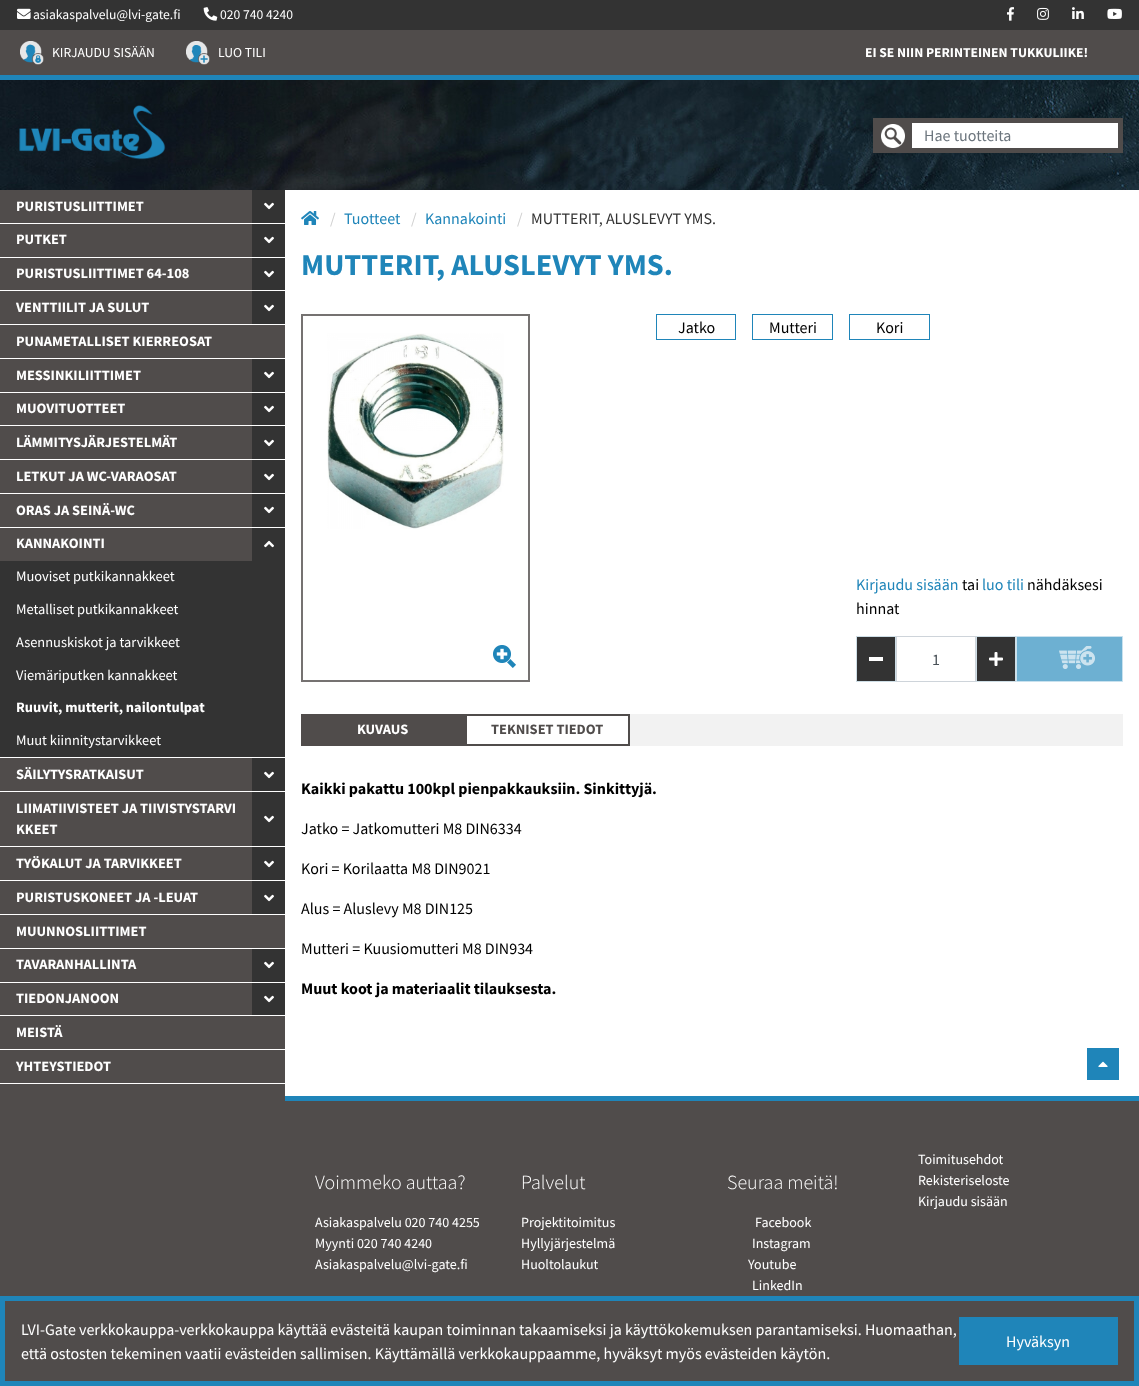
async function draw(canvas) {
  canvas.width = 1139
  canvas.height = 1386
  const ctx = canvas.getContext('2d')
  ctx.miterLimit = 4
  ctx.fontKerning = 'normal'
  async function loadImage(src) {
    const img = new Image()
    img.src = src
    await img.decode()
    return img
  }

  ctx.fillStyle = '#504c4b'
  ctx.fillRect(0, 0, 1139, 1386)
  ctx.fillStyle = '#333'
  ctx.fillRect(0, 0, 1139, 30)
  ctx.drawImage(await loadImage('image0.png'), 17, 8, 14, 11)
  ctx.font = '13.6px Source Sans Pro'
  ctx.fillStyle = '#fff'
  ctx.fillText('asiakaspalvelu@lvi-gate.fi', 33, 19)
  ctx.drawImage(await loadImage('image1.png'), 203, 7, 15, 14)
  ctx.fillText('020 740 4240', 220, 19)
  ctx.drawImage(await loadImage('image2.png'), 1007, 7, 7, 14)
  ctx.drawImage(await loadImage('image3.png'), 1037, 7, 12, 13)
  ctx.drawImage(await loadImage('image4.png'), 1072, 7, 12, 12)
  ctx.drawImage(await loadImage('image5.png'), 1107, 8, 15, 11)
  ctx.fillStyle = '#1f85b9'
  ctx.fillRect(0, 75, 1139, 5)
  ctx.drawImage(await loadImage('image6.png'), 20, 41, 24, 24)
  ctx.fillStyle = '#fff'
  ctx.fillText('KIRJAUDU SISÄÄN', 52, 57)
  ctx.drawImage(await loadImage('image7.png'), 186, 41, 24, 24)
  ctx.fillText('LUO TILI', 218, 57)
  ctx.font = 'bold 13.6px Source Sans Pro'
  ctx.fillText('EI SE NIIN PERINTEINEN TUKKULIIKE!', 865, 57)
  ctx.drawImage(await loadImage('image8.png'), 0, 80, 1139, 110)
  ctx.drawImage(await loadImage('image9.png'), 19, 105, 147, 55)
  ctx.fillStyle = '#504c4b'
  ctx.fillRect(873, 118, 34, 35)
  ctx.drawImage(await loadImage('image10.png'), 881, 124, 24, 24)
  ctx.fillStyle = '#fff'
  ctx.beginPath()
  ctx.rect(909.5, 120.5, 211, 30)
  ctx.fill()
  ctx.strokeStyle = '#504c4b'
  ctx.lineWidth = 5
  ctx.stroke()
  ctx.font = '16px Source Sans Pro'
  ctx.fillStyle = '#6c757d'
  ctx.fillText('Hae tuotteita', 924, 141)
  ctx.fillStyle = '#fff'
  ctx.fillRect(0, 223, 285, 1)
  ctx.font = 'bold 14.4px Source Sans Pro'
  ctx.fillText('PURISTUSLIITTIMET', 16, 211)
  ctx.fillStyle = '#333'
  ctx.fillRect(252, 190, 33, 33)
  ctx.drawImage(await loadImage('image11.png'), 264, 202, 10, 8)
  ctx.fillStyle = '#fff'
  ctx.fillRect(0, 257, 285, 1)
  ctx.fillText('PUTKET', 16, 244)
  ctx.fillStyle = '#333'
  ctx.fillRect(252, 224, 33, 33)
  ctx.drawImage(await loadImage('image11.png'), 264, 236, 10, 8)
  ctx.fillStyle = '#fff'
  ctx.fillRect(0, 290, 285, 1)
  ctx.fillText('PURISTUSLIITTIMET 64-108', 16, 278)
  ctx.fillStyle = '#333'
  ctx.fillRect(252, 258, 33, 32)
  ctx.drawImage(await loadImage('image11.png'), 264, 270, 10, 8)
  ctx.fillStyle = '#fff'
  ctx.fillRect(0, 324, 285, 1)
  ctx.fillText('VENTTIILIT JA SULUT', 16, 312)
  ctx.fillStyle = '#333'
  ctx.fillRect(252, 291, 33, 33)
  ctx.drawImage(await loadImage('image11.png'), 264, 304, 10, 8)
  ctx.fillStyle = '#fff'
  ctx.fillRect(0, 358, 285, 1)
  ctx.fillText('PUNAMETALLISET KIERREOSAT', 16, 346)
  ctx.fillRect(0, 392, 285, 1)
  ctx.fillText('MESSINKILIITTIMET', 16, 380)
  ctx.fillStyle = '#333'
  ctx.fillRect(252, 359, 33, 33)
  ctx.drawImage(await loadImage('image11.png'), 264, 371, 10, 8)
  ctx.fillStyle = '#fff'
  ctx.fillRect(0, 425, 285, 1)
  ctx.fillText('MUOVITUOTTEET', 16, 413)
  ctx.fillStyle = '#333'
  ctx.fillRect(252, 393, 33, 32)
  ctx.drawImage(await loadImage('image11.png'), 264, 405, 10, 8)
  ctx.fillStyle = '#fff'
  ctx.fillRect(0, 459, 285, 1)
  ctx.fillText('LÄMMITYSJÄRJESTELMÄT', 16, 447)
  ctx.fillStyle = '#333'
  ctx.fillRect(252, 426, 33, 33)
  ctx.drawImage(await loadImage('image11.png'), 264, 439, 10, 8)
  ctx.fillStyle = '#fff'
  ctx.fillRect(0, 493, 285, 1)
  ctx.fillText('LETKUT JA WC-VARAOSAT', 16, 481)
  ctx.fillStyle = '#333'
  ctx.fillRect(252, 460, 33, 33)
  ctx.drawImage(await loadImage('image11.png'), 264, 473, 10, 8)
  ctx.fillStyle = '#fff'
  ctx.fillRect(0, 527, 285, 1)
  ctx.fillText('ORAS JA SEINÄ-WC', 16, 515)
  ctx.fillStyle = '#333'
  ctx.fillRect(252, 494, 33, 33)
  ctx.drawImage(await loadImage('image11.png'), 264, 506, 10, 8)
  ctx.fillStyle = '#fff'
  ctx.fillRect(0, 757, 285, 1)
  ctx.fillText('KANNAKOINTI', 16, 548)
  ctx.fillStyle = '#333'
  ctx.fillRect(252, 528, 33, 33)
  ctx.drawImage(await loadImage('image12.png'), 264, 540, 10, 8)
  ctx.fillRect(0, 561, 285, 196)
  ctx.font = '14.4px Source Sans Pro'
  ctx.fillStyle = '#fff'
  ctx.fillText('Muoviset putkikannakkeet', 16, 581)
  ctx.fillText('Metalliset putkikannakkeet', 16, 614)
  ctx.fillText('Asennuskiskot ja tarvikkeet', 16, 647)
  ctx.fillText('Viemäriputken kannakkeet', 16, 680)
  ctx.font = 'bold 14.4px Source Sans Pro'
  ctx.fillText('Ruuvit, mutterit, nailontulpat', 16, 712)
  ctx.font = '14.4px Source Sans Pro'
  ctx.fillText('Muut kiinnitystarvikkeet', 16, 745)
  ctx.fillRect(0, 791, 285, 1)
  ctx.font = 'bold 14.4px Source Sans Pro'
  ctx.fillText('SÄILYTYSRATKAISUT', 16, 779)
  ctx.fillStyle = '#333'
  ctx.fillRect(252, 758, 33, 33)
  ctx.drawImage(await loadImage('image11.png'), 264, 771, 10, 8)
  ctx.fillStyle = '#fff'
  ctx.fillRect(0, 846, 285, 1)
  ctx.fillText('LIIMATIIVISTEET JA TIIVISTYSTARVI', 16, 813)
  ctx.fillText('KKEET', 16, 834)
  ctx.fillStyle = '#333'
  ctx.fillRect(252, 792, 33, 54)
  ctx.drawImage(await loadImage('image11.png'), 264, 815, 10, 8)
  ctx.fillStyle = '#fff'
  ctx.fillRect(0, 880, 285, 1)
  ctx.fillText('TYÖKALUT JA TARVIKKEET', 16, 868)
  ctx.fillStyle = '#333'
  ctx.fillRect(252, 847, 33, 33)
  ctx.drawImage(await loadImage('image11.png'), 264, 860, 10, 8)
  ctx.fillStyle = '#fff'
  ctx.fillRect(0, 914, 285, 1)
  ctx.fillText('PURISTUSKONEET JA -LEUAT', 16, 902)
  ctx.fillStyle = '#333'
  ctx.fillRect(252, 881, 33, 33)
  ctx.drawImage(await loadImage('image11.png'), 264, 894, 10, 8)
  ctx.fillStyle = '#fff'
  ctx.fillRect(0, 948, 285, 1)
  ctx.fillText('MUUNNOSLIITTIMET', 16, 936)
  ctx.fillRect(0, 982, 285, 1)
  ctx.fillText('TAVARANHALLINTA', 16, 969)
  ctx.fillStyle = '#333'
  ctx.fillRect(252, 949, 33, 33)
  ctx.drawImage(await loadImage('image11.png'), 264, 961, 10, 8)
  ctx.fillStyle = '#fff'
  ctx.fillRect(0, 1015, 285, 1)
  ctx.fillText('TIEDONJANOON', 16, 1003)
  ctx.fillStyle = '#333'
  ctx.fillRect(252, 983, 33, 32)
  ctx.drawImage(await loadImage('image11.png'), 264, 995, 10, 8)
  ctx.fillStyle = '#fff'
  ctx.fillRect(0, 1049, 285, 1)
  ctx.fillText('MEISTÄ', 16, 1037)
  ctx.fillRect(0, 1083, 285, 1)
  ctx.fillText('YHTEYSTIEDOT', 16, 1071)
  ctx.fillRect(285, 190, 854, 906)
  ctx.drawImage(await loadImage('image13.png'), 301, 211, 18, 14)
  ctx.font = '16px Source Sans Pro'
  ctx.fillStyle = '#d0d0d0'
  ctx.fillText('/', 330, 224)
  ctx.fillStyle = '#1f85b9'
  ctx.fillText('Tuotteet', 344, 224)
  ctx.fillStyle = '#d0d0d0'
  ctx.fillText('/', 411, 224)
  ctx.fillStyle = '#1f85b9'
  ctx.fillText('Kannakointi', 425, 224)
  ctx.fillStyle = '#d0d0d0'
  ctx.fillText('/', 517, 224)
  ctx.fillStyle = '#333'
  ctx.fillText('MUTTERIT, ALUSLEVYT YMS.', 531, 224)
  ctx.font = 'bold 30.4px Source Sans Pro'
  ctx.fillStyle = '#1f85b9'
  ctx.fillText('MUTTERIT, ALUSLEVYT YMS.', 301, 275)
  ctx.strokeStyle = '#757271'
  ctx.lineWidth = 2
  ctx.strokeRect(302, 315, 227, 366)
  ctx.drawImage(await loadImage('image14.png'), 327, 333, 177, 196)
  ctx.drawImage(await loadImage('image15.png'), 493, 645, 23, 23)
  ctx.strokeStyle = '#1f85b9'
  ctx.lineWidth = 1
  ctx.strokeRect(656.5, 314.5, 79, 25)
  ctx.font = '16px Source Sans Pro'
  ctx.fillStyle = '#000'
  ctx.fillText('Jatko', 678, 333)
  ctx.strokeRect(752.5, 314.5, 80, 25)
  ctx.fillText('Mutteri', 769, 333)
  ctx.strokeRect(849.5, 314.5, 80, 25)
  ctx.fillText('Kori', 876, 333)
  ctx.fillStyle = '#1f85b9'
  ctx.fillText('Kirjaudu sisään', 856, 590)
  ctx.fillStyle = '#000'
  ctx.fillText('tai', 962, 590)
  ctx.fillStyle = '#1f85b9'
  ctx.fillText('luo tili', 982, 590)
  ctx.fillStyle = '#000'
  ctx.fillText('nähdäksesi', 1027, 590)
  ctx.fillText('hinnat', 856, 614)
  ctx.fillStyle = '#333'
  ctx.beginPath()
  ctx.rect(856.5, 636.5, 39, 45)
  ctx.fill()
  ctx.strokeStyle = '#cedee6'
  ctx.stroke()
  ctx.fillStyle = '#fff'
  ctx.fillRect(869, 657, 14, 4)
  ctx.strokeStyle = '#ced4da'
  ctx.strokeRect(896.5, 636.5, 79, 45)
  ctx.fillStyle = '#495057'
  ctx.fillText('1', 932, 665)
  ctx.fillStyle = '#333'
  ctx.beginPath()
  ctx.rect(976.5, 636.5, 39, 45)
  ctx.fill()
  ctx.strokeStyle = '#cedee6'
  ctx.stroke()
  ctx.drawImage(await loadImage('image16.png'), 989, 652, 14, 14)
  ctx.fillStyle = '#6db0d2'
  ctx.beginPath()
  ctx.rect(1016.5, 636.5, 106, 45)
  ctx.fill()
  ctx.strokeStyle = '#c8e1ee'
  ctx.stroke()
  ctx.drawImage(await loadImage('image17.png'), 1059, 646, 36, 23)
  ctx.fillStyle = '#f2f2f2'
  ctx.fillRect(630, 714, 493, 32)
  ctx.fillStyle = '#504c4b'
  ctx.fillRect(301, 714, 164, 32)
  ctx.font = 'bold 14.4px Source Sans Pro'
  ctx.fillStyle = '#fff'
  ctx.fillText('KUVAUS', 357, 734)
  ctx.strokeStyle = '#504c4b'
  ctx.lineWidth = 2
  ctx.strokeRect(466, 715, 163, 30)
  ctx.fillStyle = '#504c4b'
  ctx.fillText('TEKNISET TIEDOT', 491, 734)
  ctx.font = 'bold 16px Source Sans Pro'
  ctx.fillStyle = '#000'
  ctx.fillText('Kaikki pakattu 100kpl pienpakkauksiin. Sinkittyjä.', 301, 794)
  ctx.font = '16px Source Sans Pro'
  ctx.fillText('Jatko = Jatkomutteri M8 DIN6334', 301, 834)
  ctx.fillText('Kori = Korilaatta M8 DIN9021', 301, 874)
  ctx.fillText('Alus = Aluslevy M8 DIN125', 301, 914)
  ctx.fillText('Mutteri = Kuusiomutteri M8 DIN934', 301, 954)
  ctx.font = 'bold 16px Source Sans Pro'
  ctx.fillText('Muut koot ja materiaalit tilauksesta.', 301, 994)
  ctx.fillStyle = '#1f85b9'
  ctx.fillRect(1087, 1048, 32, 32)
  ctx.drawImage(await loadImage('image18.png'), 1098, 1061, 10, 6)
  ctx.fillRect(285, 1096, 854, 5)
  ctx.font = '300 20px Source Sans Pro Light'
  ctx.fillStyle = '#fff'
  ctx.fillText('Voimmeko auttaa?', 315, 1189)
  ctx.font = '14px Source Sans Pro'
  ctx.fillText('Asiakaspalvelu 020 740 4255', 315, 1227)
  ctx.fillText('Myynti 020 740 4240', 315, 1248)
  ctx.fillText('Asiakaspalvelu@lvi-gate.fi', 315, 1269)
  ctx.font = '300 20px Source Sans Pro Light'
  ctx.fillText('Palvelut', 521, 1189)
  ctx.font = '14px Source Sans Pro'
  ctx.fillText('Projektitoimitus', 521, 1227)
  ctx.fillText('Hyllyjärjestelmä', 521, 1248)
  ctx.fillText('Huoltolaukut', 521, 1269)
  ctx.font = '300 20px Source Sans Pro Light'
  ctx.fillText('Seuraa meitä!', 727, 1189)
  ctx.font = '14px Source Sans Pro'
  ctx.fillText('Facebook', 755, 1227)
  ctx.fillText('Instagram', 752, 1248)
  ctx.fillText('Youtube', 748, 1269)
  ctx.fillText('LinkedIn', 752, 1290)
  ctx.fillText('Toimitusehdot', 918, 1164)
  ctx.fillText('Rekisteriseloste', 918, 1185)
  ctx.fillText('Kirjaudu sisään', 918, 1206)
  ctx.strokeStyle = '#1f85b9'
  ctx.lineWidth = 5
  ctx.strokeRect(2.5, 1298.5, 1134, 85)
  ctx.font = '16px Source Sans Pro'
  ctx.fillText('LVI-Gate verkkokauppa-verkkokauppa käyttää evästeitä kaupan toiminnan takaamiseksi ja käyttökokemuksen parantamiseksi. Huomaathan,', 21, 1335)
  ctx.fillStyle = '#1f85b9'
  ctx.fillRect(959, 1317, 159, 48)
  ctx.fillStyle = '#fff'
  ctx.fillText('Hyväksyn', 1006, 1347)
  ctx.fillText('että ostosten tekeminen vaatii evästeiden sallimisen. Käyttämällä verkkokauppaamme, hyväksyt myös evästeiden käytön.', 21, 1359)
}

draw(document.querySelector('canvas'))
